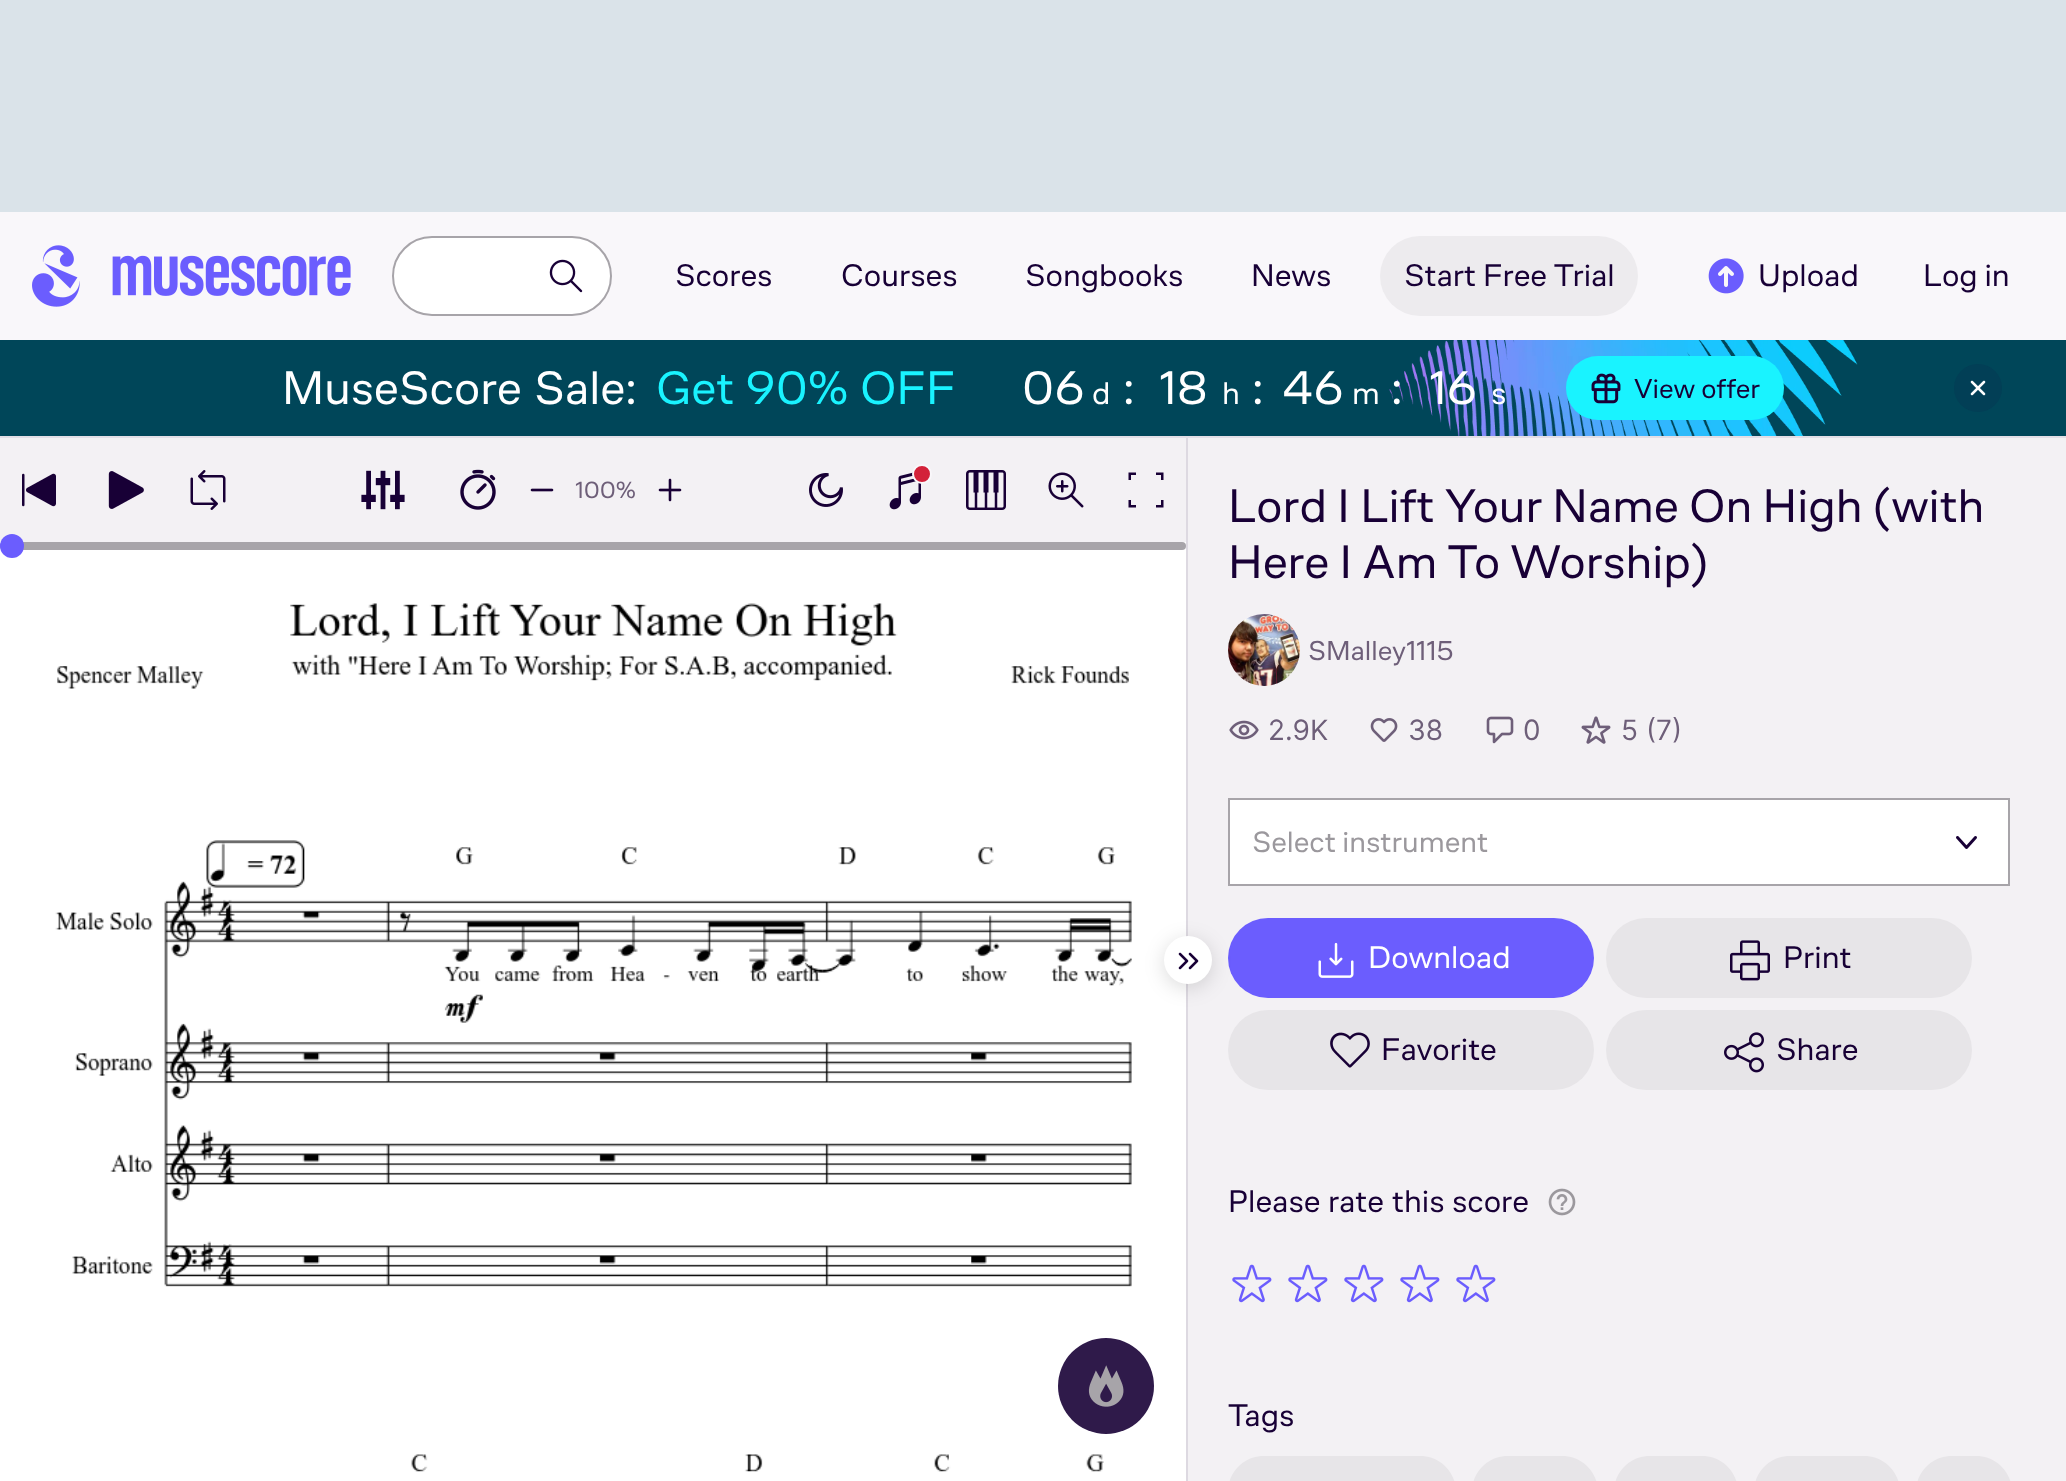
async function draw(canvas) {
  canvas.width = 2066
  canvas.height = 1481
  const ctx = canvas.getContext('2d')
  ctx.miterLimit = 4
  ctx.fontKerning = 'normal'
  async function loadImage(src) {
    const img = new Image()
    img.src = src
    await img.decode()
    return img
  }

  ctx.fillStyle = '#f9f7fa'
  ctx.fillRect(0, 0, 2066, 1481)
  ctx.fillStyle = '#e2dee6'
  ctx.fillRect(0, 436, 2066, 2)
  ctx.fillStyle = '#dae3e9'
  ctx.fillRect(0, 0, 2066, 212)
  ctx.drawImage(await loadImage('image0.png'), 32, 245, 319, 62)
  ctx.fillStyle = '#fff'
  ctx.beginPath()
  ctx.roundRect(393, 237, 218, 78, 39)
  ctx.fill()
  ctx.strokeStyle = '#a7a4a9'
  ctx.lineWidth = 2
  ctx.stroke()
  ctx.drawImage(await loadImage('image1.png'), 549, 259, 34, 34)
  ctx.font = '32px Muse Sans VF'
  ctx.fillStyle = '#180036'
  ctx.fillText('Scores', 675, 286)
  ctx.fillText('Courses', 841, 286)
  ctx.fillText('Songbooks', 1025, 286)
  ctx.fillText('News', 1251, 286)
  ctx.fillStyle = '#edebee'
  ctx.beginPath()
  ctx.roundRect(1380, 236, 258, 80, 40)
  ctx.fill()
  ctx.fillStyle = '#180036'
  ctx.fillText('Start Free Trial', 1404, 286)
  ctx.drawImage(await loadImage('image2.png'), 1708, 258, 36, 36)
  ctx.fillText('Upload', 1758, 286)
  ctx.fillText('Log in', 1923, 286)
  ctx.fillStyle = '#004659'
  ctx.fillRect(0, 340, 2066, 96)
  ctx.font = '48px Muse Sans VF'
  ctx.fillStyle = '#fff'
  ctx.fillText('MuseScore', 282, 404)
  ctx.fillText('Sale:', 534, 404)
  ctx.fillStyle = '#19f3ff'
  ctx.fillText('Get', 656, 404)
  ctx.fillText('90%', 745, 404)
  ctx.fillText('OFF', 860, 404)
  ctx.fillStyle = '#fff'
  ctx.fillText('06', 1022, 404)
  ctx.font = '32px Muse Sans VF'
  ctx.fillText('d', 1092, 404)
  ctx.font = '48px Muse Sans VF'
  ctx.fillText(':', 1123, 404)
  ctx.fillText('18', 1159, 404)
  ctx.font = '32px Muse Sans VF'
  ctx.fillText('h', 1222, 404)
  ctx.font = '48px Muse Sans VF'
  ctx.fillText(':', 1252, 404)
  ctx.fillText('46', 1282, 404)
  ctx.font = '32px Muse Sans VF'
  ctx.fillText('m', 1352, 404)
  ctx.drawImage(await loadImage('image3.png'), 1389, 340, 469, 96)
  ctx.font = '48px Muse Sans VF'
  ctx.fillText(':', 1391, 404)
  ctx.fillText('16', 1429, 404)
  ctx.font = '32px Muse Sans VF'
  ctx.fillText('s', 1491, 404)
  ctx.fillStyle = '#19f3ff'
  ctx.beginPath()
  ctx.roundRect(1566, 356, 218, 64, 32)
  ctx.fill()
  ctx.drawImage(await loadImage('image4.png'), 1591, 373, 30, 31)
  ctx.font = '28px Muse Sans VF'
  ctx.fillStyle = '#180036'
  ctx.fillText('View offer', 1634, 398)
  ctx.fillStyle = '#023f56'
  ctx.beginPath()
  ctx.arc(1978, 388, 24, 0, 2 * Math.PI)
  ctx.fill()
  ctx.drawImage(await loadImage('image5.png'), 1970, 380, 16, 16)
  ctx.fillStyle = '#fff'
  ctx.fillRect(0, 542, 1186, 939)
  ctx.fillStyle = '#a7a4a9'
  ctx.beginPath()
  ctx.roundRect(0, 542, 1186, 8, 4)
  ctx.fill()
  ctx.fillStyle = '#f3f1f4'
  ctx.fillRect(0, 438, 1186, 104)
  ctx.fillStyle = '#6b5dfe'
  ctx.beginPath()
  ctx.arc(12, 546, 12, 0, 2 * Math.PI)
  ctx.fill()
  ctx.drawImage(await loadImage('image6.png'), 22, 473, 34, 34)
  ctx.drawImage(await loadImage('image7.png'), 108, 471, 36, 38)
  ctx.drawImage(await loadImage('image8.png'), 190, 470, 36, 40)
  ctx.drawImage(await loadImage('image9.png'), 361, 470, 44, 40)
  ctx.drawImage(await loadImage('image10.png'), 460, 469, 36, 41)
  ctx.drawImage(await loadImage('image11.png'), 530, 488, 24, 4)
  ctx.font = '24px Muse Sans VF'
  ctx.fillStyle = '#6e5f79'
  ctx.fillText('100%', 575, 498)
  ctx.drawImage(await loadImage('image12.png'), 658, 478, 24, 24)
  ctx.drawImage(await loadImage('image13.png'), 809, 473, 34, 34)
  ctx.drawImage(await loadImage('image14.png'), 889, 472, 32, 38)
  ctx.fillStyle = '#d32139'
  ctx.beginPath()
  ctx.arc(922, 474, 9, 0, 2 * Math.PI)
  ctx.fill()
  ctx.strokeStyle = '#f9f7fa'
  ctx.stroke()
  ctx.drawImage(await loadImage('image15.png'), 966, 470, 40, 40)
  ctx.drawImage(await loadImage('image16.png'), 1048, 472, 36, 36)
  ctx.drawImage(await loadImage('image17.png'), 1128, 472, 36, 36)
  ctx.drawImage(await loadImage('image18.png'), 55, 603, 1077, 869)
  ctx.fillStyle = '#2f1a4a'
  ctx.beginPath()
  ctx.arc(1106, 1386, 48, 0, 2 * Math.PI)
  ctx.fill()
  ctx.drawImage(await loadImage('image19.png'), 1088, 1365, 36, 42)
  ctx.fillStyle = '#f3f1f4'
  ctx.fillRect(1188, 438, 878, 1043)
  ctx.fillStyle = '#ddd9e1'
  ctx.fillRect(1186, 438, 2, 1043)
  ctx.fillStyle = '#6b5dfe'
  ctx.beginPath()
  ctx.roundRect(1228, 918, 366, 80, 40)
  ctx.fill()
  ctx.fillStyle = '#e7e5e8'
  ctx.beginPath()
  ctx.roundRect(1228, 1010, 366, 80, 40)
  ctx.fill()
  ctx.fillStyle = '#00000024'
  ctx.filter = 'blur(10px)'
  ctx.beginPath()
  ctx.roundRect(1164, 940, 48, 48, 24)
  ctx.fill()
  ctx.filter = 'none'
  ctx.fillStyle = '#fff'
  ctx.beginPath()
  ctx.arc(1188, 960, 24, 0, 2 * Math.PI)
  ctx.fill()
  ctx.drawImage(await loadImage('image20.png'), 1178, 952, 21, 18)
  ctx.font = '48px Muse Sans VF'
  ctx.fillStyle = '#180036'
  ctx.fillText('Lord I Lift Your Name On High (with', 1228, 522)
  ctx.fillText('Here I Am To Worship)', 1228, 578)
  ctx.drawImage(await loadImage('image21.png'), 1228, 614, 72, 72)
  ctx.font = '28px Muse Sans VF'
  ctx.fillStyle = '#6e5f79'
  ctx.fillText('SMalley1115', 1308, 660)
  ctx.drawImage(await loadImage('image22.png'), 1229, 720, 30, 20)
  ctx.font = '28px Inter'
  ctx.fillText('2.9K', 1268, 740)
  ctx.drawImage(await loadImage('image23.png'), 1370, 718, 28, 24)
  ctx.fillText('38', 1408, 740)
  ctx.drawImage(await loadImage('image24.png'), 1486, 716, 28, 28)
  ctx.fillText('0', 1523, 740)
  ctx.drawImage(await loadImage('image25.png'), 1581, 716, 30, 28)
  ctx.fillText('5 (7)', 1621, 740)
  ctx.fillStyle = '#fff'
  ctx.beginPath()
  ctx.rect(1229, 799, 780, 86)
  ctx.fill()
  ctx.strokeStyle = '#a7a4a9'
  ctx.stroke()
  ctx.font = '30px Muse Sans VF'
  ctx.fillStyle = '#9b989d'
  ctx.fillText('Select instrument', 1252, 852)
  ctx.drawImage(await loadImage('image26.png'), 1956, 836, 21, 13)
  ctx.drawImage(await loadImage('image27.png'), 1318, 942, 36, 36)
  ctx.font = '32px Muse Sans VF'
  ctx.fillStyle = '#fff'
  ctx.fillText('Download', 1368, 968)
  ctx.fillStyle = '#e7e5e8'
  ctx.beginPath()
  ctx.roundRect(1606, 918, 366, 80, 40)
  ctx.fill()
  ctx.drawImage(await loadImage('image28.png'), 1730, 940, 40, 41)
  ctx.fillStyle = '#180036'
  ctx.fillText('Print', 1783, 968)
  ctx.drawImage(await loadImage('image29.png'), 1330, 1032, 40, 36)
  ctx.fillText('Favorite', 1381, 1060)
  ctx.fillStyle = '#e7e5e8'
  ctx.beginPath()
  ctx.roundRect(1606, 1010, 366, 80, 40)
  ctx.fill()
  ctx.drawImage(await loadImage('image30.png'), 1724, 1032, 40, 41)
  ctx.fillStyle = '#180036'
  ctx.fillText('Share', 1776, 1060)
  ctx.fillText('Please', 1228, 1212)
  ctx.fillText('rate', 1328, 1212)
  ctx.fillText('this', 1392, 1212)
  ctx.fillText('score', 1452, 1212)
  ctx.drawImage(await loadImage('image31.png'), 1548, 1188, 28, 28)
  ctx.drawImage(await loadImage('image32.png'), 1232, 1264, 40, 39)
  ctx.drawImage(await loadImage('image32.png'), 1288, 1264, 40, 39)
  ctx.drawImage(await loadImage('image32.png'), 1344, 1264, 40, 39)
  ctx.drawImage(await loadImage('image32.png'), 1400, 1264, 40, 39)
  ctx.drawImage(await loadImage('image32.png'), 1456, 1264, 40, 39)
  ctx.fillText('Tags', 1228, 1426)
  ctx.fillStyle = '#e7e5e8'
  ctx.beginPath()
  ctx.moveTo(1264, 1456)
  ctx.lineTo(1420, 1456)
  ctx.bezierCurveTo(1440, 1456, 1456, 1472, 1456, 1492)
  ctx.lineTo(1456, 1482)
  ctx.lineTo(1228, 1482)
  ctx.lineTo(1228, 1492)
  ctx.bezierCurveTo(1228, 1472, 1244, 1456, 1264, 1456)
  ctx.closePath()
  ctx.fill()
  ctx.beginPath()
  ctx.moveTo(1508, 1456)
  ctx.lineTo(1562, 1456)
  ctx.bezierCurveTo(1582, 1456, 1598, 1472, 1598, 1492)
  ctx.lineTo(1598, 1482)
  ctx.lineTo(1472, 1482)
  ctx.lineTo(1472, 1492)
  ctx.bezierCurveTo(1472, 1472, 1488, 1456, 1508, 1456)
  ctx.closePath()
  ctx.fill()
  ctx.beginPath()
  ctx.moveTo(1650, 1456)
  ctx.lineTo(1702, 1456)
  ctx.bezierCurveTo(1722, 1456, 1738, 1472, 1738, 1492)
  ctx.lineTo(1738, 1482)
  ctx.lineTo(1614, 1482)
  ctx.lineTo(1614, 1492)
  ctx.bezierCurveTo(1614, 1472, 1630, 1456, 1650, 1456)
  ctx.closePath()
  ctx.fill()
  ctx.beginPath()
  ctx.moveTo(1790, 1456)
  ctx.lineTo(1864, 1456)
  ctx.bezierCurveTo(1884, 1456, 1900, 1472, 1900, 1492)
  ctx.lineTo(1900, 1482)
  ctx.lineTo(1754, 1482)
  ctx.lineTo(1754, 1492)
  ctx.bezierCurveTo(1754, 1472, 1770, 1456, 1790, 1456)
  ctx.closePath()
  ctx.fill()
  ctx.beginPath()
  ctx.moveTo(1952, 1456)
  ctx.lineTo(1976, 1456)
  ctx.bezierCurveTo(1996, 1456, 2012, 1472, 2012, 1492)
  ctx.lineTo(2012, 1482)
  ctx.lineTo(1916, 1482)
  ctx.lineTo(1916, 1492)
  ctx.bezierCurveTo(1916, 1472, 1932, 1456, 1952, 1456)
  ctx.closePath()
  ctx.fill()
}

draw(document.querySelector('canvas'))
